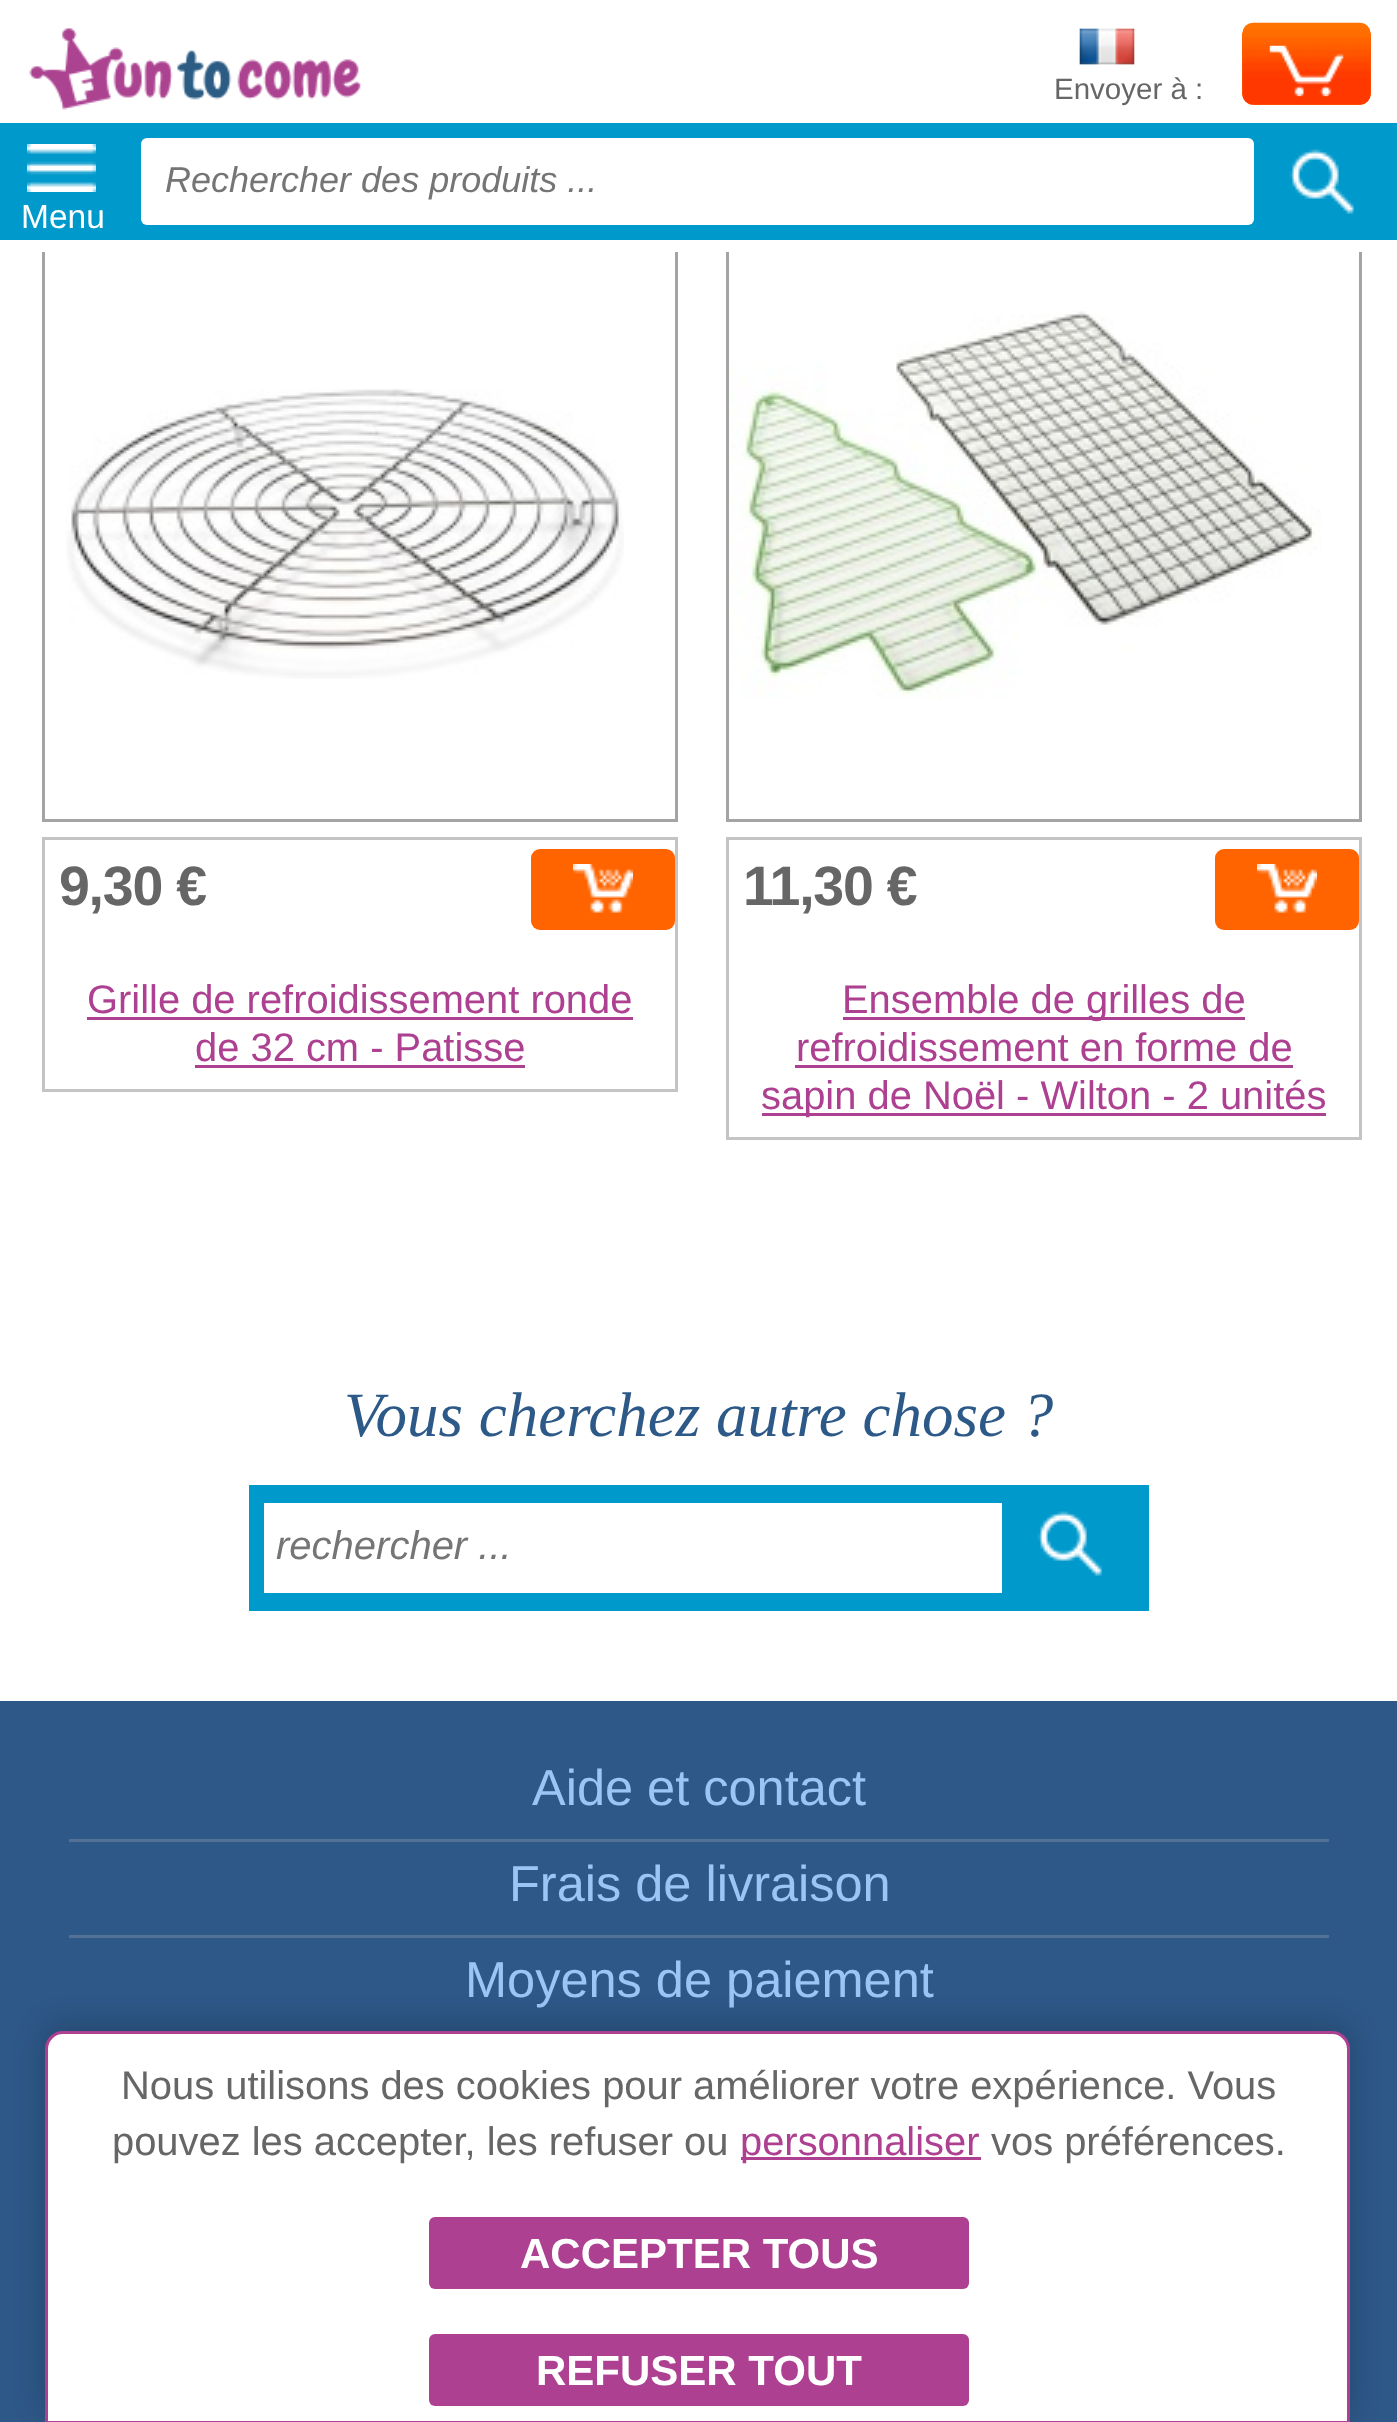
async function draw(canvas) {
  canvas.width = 1397
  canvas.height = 2422
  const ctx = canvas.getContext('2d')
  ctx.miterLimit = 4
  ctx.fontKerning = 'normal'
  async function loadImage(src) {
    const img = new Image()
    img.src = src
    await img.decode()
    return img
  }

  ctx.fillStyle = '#fff'
  ctx.fillRect(0, 0, 1397, 2422)
  ctx.strokeStyle = '#a4a4a4'
  ctx.lineWidth = 3
  ctx.strokeRect(43.5, 217.5, 633, 603)
  ctx.strokeRect(727.5, 217.5, 633, 603)
  ctx.fillRect(42, 240, 1320, 12)
  ctx.drawImage(await loadImage('image0.png'), 29, 28, 332, 82)
  ctx.drawImage(await loadImage('image1.png'), 1079, 28, 56, 37)
  ctx.font = '29.5px Liberation Sans'
  ctx.fillStyle = '#666'
  ctx.fillText('Envoyer à :', 1054, 99)
  ctx.fillStyle = '#ff5d00'
  ctx.beginPath()
  ctx.roundRect(1242, 24, 129, 81, 12)
  ctx.fill()
  ctx.drawImage(await loadImage('image2.png'), 1242, 22, 129, 83)
  ctx.drawImage(await loadImage('image3.png'), 1269, 45, 75, 52)
  ctx.fillStyle = '#09c'
  ctx.fillRect(0, 123, 1397, 117)
  ctx.fillStyle = '#fff'
  ctx.beginPath()
  ctx.roundRect(141, 138, 1113, 87, 6)
  ctx.fill()
  ctx.font = 'italic 36px Liberation Sans'
  ctx.fillStyle = '#757575'
  ctx.fillText('Rechercher des produits ...', 165, 192)
  ctx.drawImage(await loadImage('image4.png'), 1289, 149, 65, 65)
  ctx.drawImage(await loadImage('image5.png'), 27, 144, 69, 48)
  ctx.font = '33.5px Liberation Sans'
  ctx.fillStyle = '#fff'
  ctx.fillText('Menu', 21, 228)
  ctx.drawImage(await loadImage('image6.png'), 66, 389, 558, 290)
  ctx.strokeStyle = '#c4c4c4'
  ctx.strokeRect(43.5, 838.5, 633, 252)
  ctx.letterSpacing = '-1.25px'
  ctx.font = 'bold 55.5px Liberation Sans'
  ctx.fillStyle = '#666'
  ctx.fillText('9,30 €', 59, 905)
  ctx.fillStyle = '#ff6400'
  ctx.beginPath()
  ctx.roundRect(531, 849, 144, 81, 9)
  ctx.fill()
  ctx.drawImage(await loadImage('image7.png'), 573, 864, 60, 49)
  ctx.letterSpacing = '0px'
  ctx.font = '39.9px Liberation Sans'
  ctx.fillStyle = '#ad4091'
  ctx.fillText('Grille de refroidissement ronde', 87, 1013)
  ctx.fillRect(87, 1017, 546, 3)
  ctx.fillText('de 32 cm - Patisse', 195, 1061)
  ctx.fillRect(195, 1065, 330, 3)
  ctx.drawImage(await loadImage('image8.png'), 729, 311, 593, 388)
  ctx.strokeRect(727.5, 838.5, 633, 300)
  ctx.letterSpacing = '-1.25px'
  ctx.font = 'bold 55.5px Liberation Sans'
  ctx.fillStyle = '#666'
  ctx.fillText('11,30 €', 743, 905)
  ctx.fillStyle = '#ff6400'
  ctx.beginPath()
  ctx.roundRect(1215, 849, 144, 81, 9)
  ctx.fill()
  ctx.drawImage(await loadImage('image9.png'), 1257, 864, 60, 49)
  ctx.fillStyle = '#ad4091'
  ctx.fillRect(843, 1017, 402, 3)
  ctx.letterSpacing = '0px'
  ctx.font = '39.9px Liberation Sans'
  ctx.fillText('Ensemble de grilles de', 842, 1013)
  ctx.fillText('refroidissement en forme de', 796, 1061)
  ctx.fillRect(795, 1065, 498, 3)
  ctx.fillRect(762, 1113, 564, 3)
  ctx.fillText('sapin de Noël - Wilton - 2 unités', 761, 1109)
  ctx.font = 'italic 63px Liberation Serif'
  ctx.fillStyle = '#2c5987'
  ctx.fillText('Vous cherchez autre chose ?', 344, 1436)
  ctx.fillStyle = '#09c'
  ctx.fillRect(249, 1485, 900, 126)
  ctx.fillStyle = '#fff'
  ctx.fillRect(264, 1503, 738, 90)
  ctx.font = 'italic 40px Liberation Sans'
  ctx.fillStyle = '#757575'
  ctx.fillText('rechercher ...', 276, 1559)
  ctx.drawImage(await loadImage('image4.png'), 1037, 1511, 65, 65)
  ctx.fillStyle = '#2e5888'
  ctx.fillRect(0, 1701, 1397, 721)
  ctx.fillStyle = '#527194'
  ctx.fillRect(69, 1839, 1260, 3)
  ctx.font = '50.5px Liberation Sans'
  ctx.fillStyle = '#9ac6f5'
  ctx.fillText('Aide et contact', 532, 1805)
  ctx.fillStyle = '#527194'
  ctx.fillRect(69, 1935, 1260, 3)
  ctx.fillStyle = '#9ac6f5'
  ctx.fillText('Frais de livraison', 509, 1901)
  ctx.fillText('Moyens de paiement', 465, 1997)
  ctx.fillStyle = '#00000033'
  ctx.filter = 'blur(15px)'
  ctx.beginPath()
  ctx.roundRect(45, 2025, 1305, 393, 18)
  ctx.fill()
  ctx.filter = 'none'
  ctx.fillStyle = '#fff'
  ctx.beginPath()
  ctx.moveTo(63, 2032.5)
  ctx.lineTo(1332, 2032.5)
  ctx.bezierCurveTo(1341, 2032.5, 1348.5, 2040, 1348.5, 2049)
  ctx.lineTo(1348.5, 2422.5)
  ctx.lineTo(46.5, 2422.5)
  ctx.lineTo(46.5, 2049)
  ctx.bezierCurveTo(46.5, 2040, 54, 2032.5, 63, 2032.5)
  ctx.closePath()
  ctx.fill()
  ctx.strokeStyle = '#ad4091'
  ctx.stroke()
  ctx.font = '39.9px Liberation Sans'
  ctx.fillStyle = '#666'
  ctx.fillText('Nous utilisons des cookies pour améliorer votre expérience. Vous', 121, 2099)
  ctx.fillText('pouvez les accepter, les refuser ou', 112, 2155)
  ctx.fillStyle = '#ad4091'
  ctx.fillRect(741, 2157, 240, 3)
  ctx.fillText('personnaliser', 740, 2155)
  ctx.fillStyle = '#666'
  ctx.fillText('vos préférences.', 991, 2155)
  ctx.fillStyle = '#ad4091'
  ctx.beginPath()
  ctx.roundRect(429, 2217, 540, 72, 6)
  ctx.fill()
  ctx.font = 'bold 42px Liberation Sans'
  ctx.fillStyle = '#fff'
  ctx.fillText('ACCEPTER TOUS', 520, 2268)
  ctx.fillStyle = '#ad4091'
  ctx.beginPath()
  ctx.roundRect(429, 2334, 540, 72, 6)
  ctx.fill()
  ctx.fillStyle = '#fff'
  ctx.fillText('REFUSER TOUT', 536, 2385)
}

draw(document.querySelector('canvas'))
